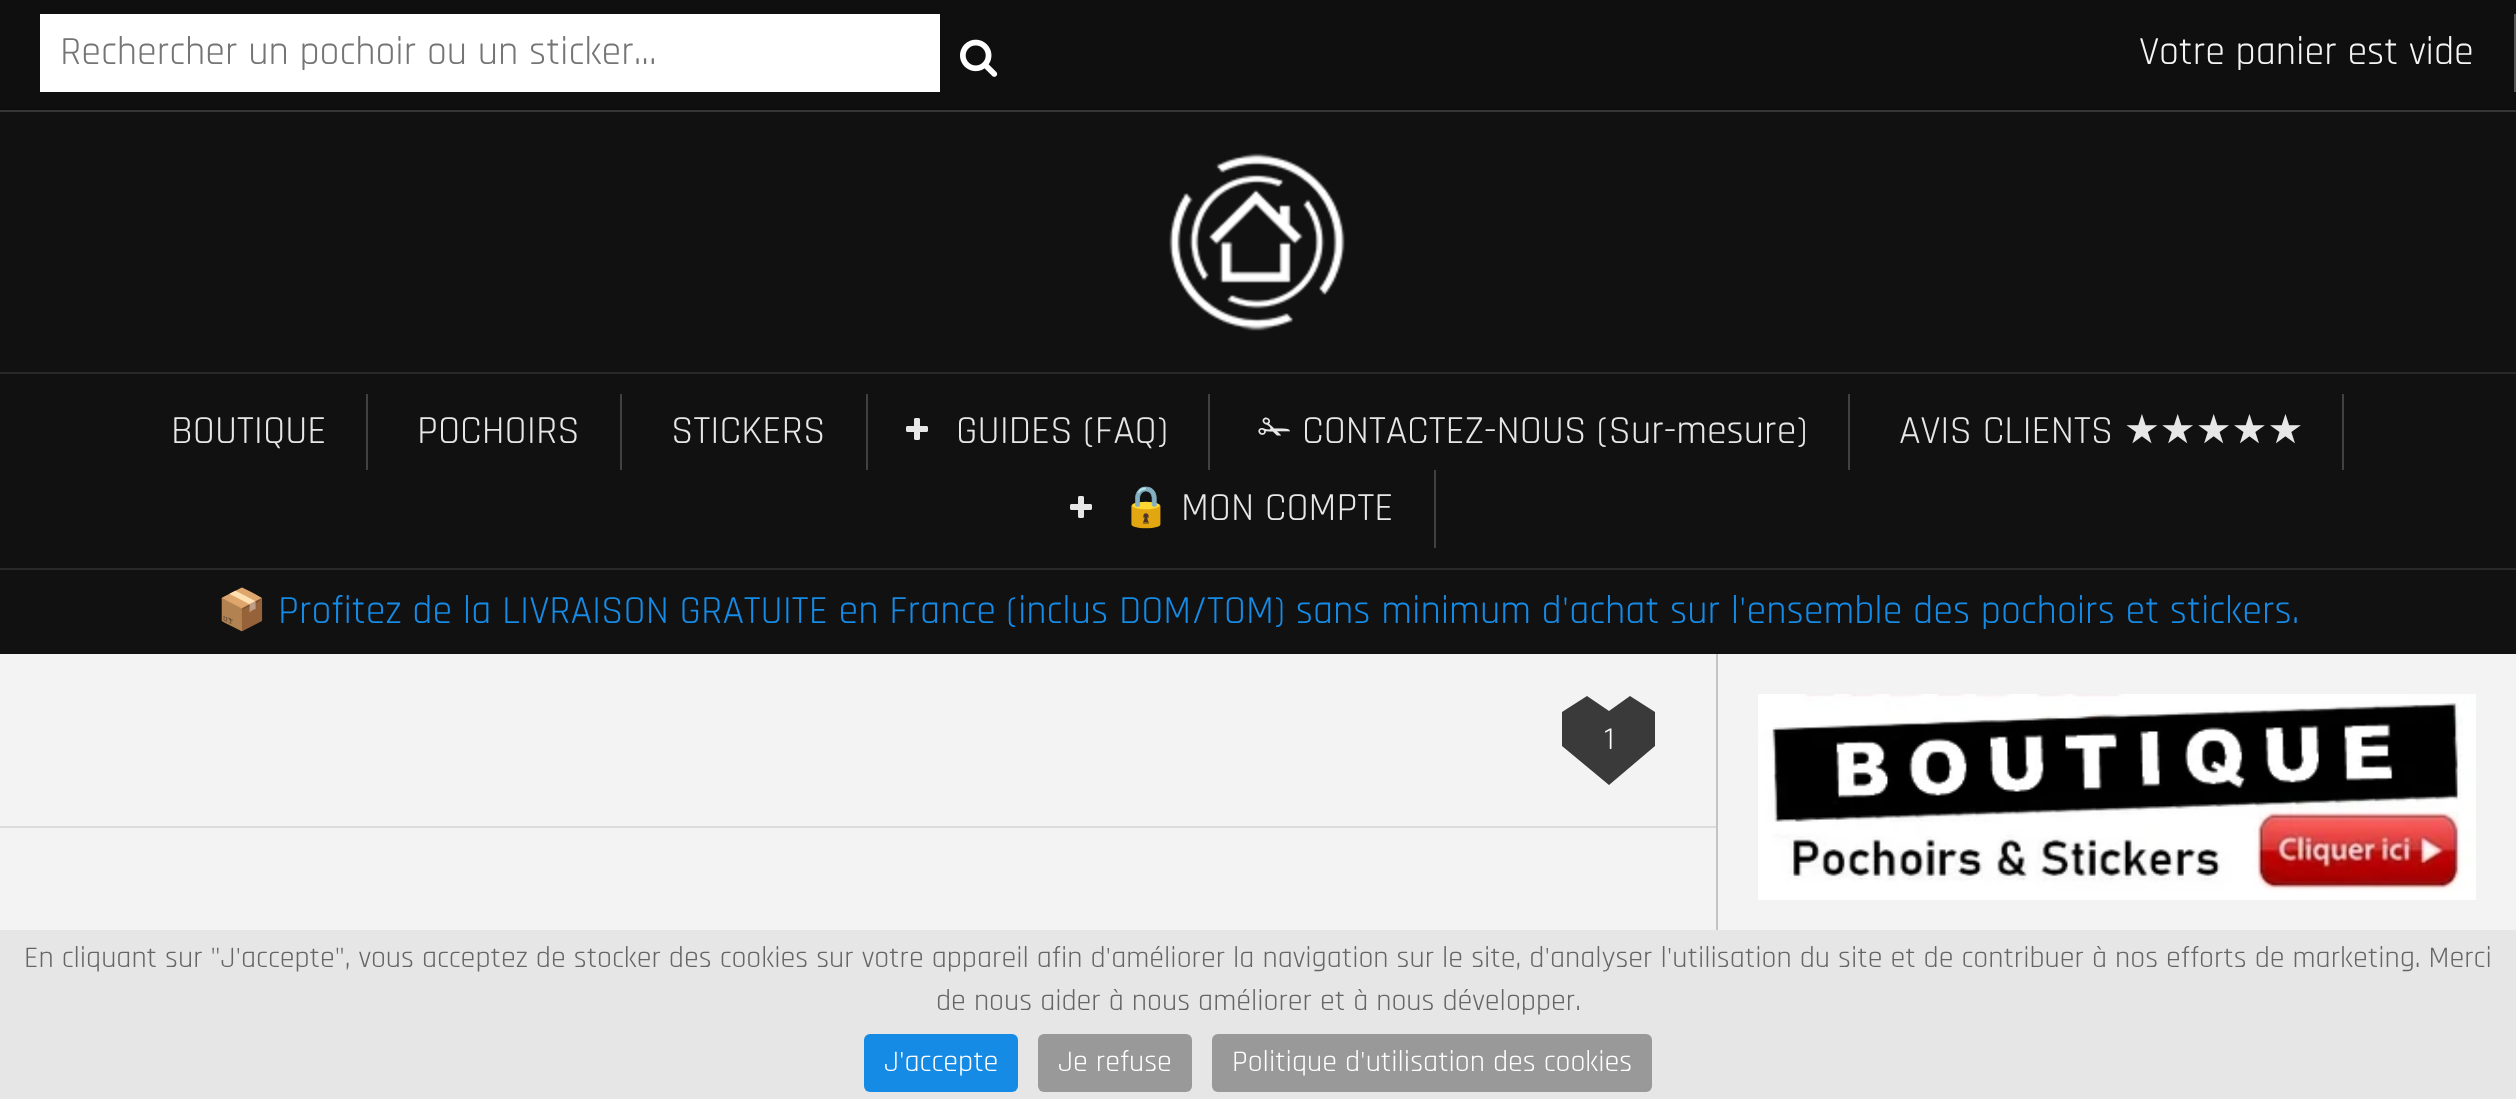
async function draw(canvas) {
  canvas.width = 2516
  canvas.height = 1099
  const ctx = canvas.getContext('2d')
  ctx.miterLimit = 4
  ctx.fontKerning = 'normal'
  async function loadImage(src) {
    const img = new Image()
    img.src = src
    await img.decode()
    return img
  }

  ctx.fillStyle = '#f3f3f3'
  ctx.fillRect(0, 0, 2516, 1099)
  ctx.fillStyle = '#111'
  ctx.fillRect(0, 112, 2516, 542)
  ctx.fillStyle = '#0f0f0f'
  ctx.fillRect(0, 0, 2516, 108)
  ctx.fillStyle = '#0d0d0d'
  ctx.fillRect(0, 108, 2516, 2)
  ctx.fillStyle = '#fff'
  ctx.fillRect(40, 14, 900, 78)
  ctx.font = '40px Rajdhani'
  ctx.fillStyle = '#757575'
  ctx.fillText('Rechercher un pochoir ou un sticker...', 60, 64)
  ctx.drawImage(await loadImage('image0.png'), 960, 39, 38, 38)
  ctx.fillStyle = '#575757'
  ctx.fillRect(2514, 14, 2, 78)
  ctx.fillStyle = '#f5f5f5'
  ctx.fillText('Votre panier est vide', 2139, 64)
  ctx.fillStyle = '#353535'
  ctx.fillRect(0, 110, 2516, 2)
  ctx.drawImage(await loadImage('image1.png'), 1169, 153, 176, 178)
  ctx.fillStyle = '#292929'
  ctx.fillRect(0, 372, 2516, 2)
  ctx.fillStyle = '#414141'
  ctx.fillRect(366, 394, 2, 76)
  ctx.fillStyle = '#e7e7e7'
  ctx.fillText('BOUTIQUE', 171, 443)
  ctx.fillStyle = '#414141'
  ctx.fillRect(620, 394, 2, 76)
  ctx.fillStyle = '#e7e7e7'
  ctx.fillText('POCHOIRS', 417, 443)
  ctx.fillStyle = '#414141'
  ctx.fillRect(866, 394, 2, 76)
  ctx.fillStyle = '#e7e7e7'
  ctx.fillText('STICKERS', 671, 443)
  ctx.fillStyle = '#414141'
  ctx.fillRect(1208, 394, 2, 76)
  ctx.drawImage(await loadImage('image2.png'), 906, 418, 22, 22)
  ctx.fillStyle = '#e7e7e7'
  ctx.fillText('GUIDES (FAQ)', 956, 443)
  ctx.fillStyle = '#414141'
  ctx.fillRect(1848, 394, 2, 76)
  ctx.font = '40px DejaVu Sans'
  ctx.fillStyle = '#e7e7e7'
  ctx.fillText('✁', 1258, 443)
  ctx.font = '40px Rajdhani'
  ctx.fillText('CONTACTEZ-NOUS (Sur-mesure)', 1302, 443)
  ctx.fillStyle = '#414141'
  ctx.fillRect(2342, 394, 2, 76)
  ctx.fillStyle = '#e7e7e7'
  ctx.fillText('AVIS CLIENTS', 1899, 443)
  ctx.font = '40px DejaVu Sans'
  ctx.fillText('★★★★★', 2124, 443)
  ctx.fillStyle = '#414141'
  ctx.fillRect(1434, 470, 2, 78)
  ctx.drawImage(await loadImage('image2.png'), 1070, 496, 22, 22)
  ctx.font = '40px Noto Color Emoji'
  ctx.fillStyle = '#e7e7e7'
  ctx.fillText('🔒', 1121, 520)
  ctx.font = '40px Rajdhani'
  ctx.fillText('MON COMPTE', 1181, 520)
  ctx.fillStyle = '#292929'
  ctx.fillRect(0, 568, 2516, 2)
  ctx.font = '40px Noto Color Emoji'
  ctx.fillStyle = '#168be6'
  ctx.fillText('📦', 217, 623)
  ctx.font = '40px Rajdhani'
  ctx.fillText('Profitez de la LIVRAISON GRATUITE en France (inclus DOM/TOM) sans minimum d\'achat sur l\'ensemble des pochoirs et stickers.', 278, 623)
  ctx.fillStyle = '#dbdbdb'
  ctx.fillRect(0, 826, 1716, 2)
  ctx.fillStyle = '#3a3a3a'
  ctx.beginPath()
  ctx.moveTo(1562, 712)
  ctx.lineTo(1587, 696)
  ctx.lineTo(1609, 711)
  ctx.lineTo(1630, 696)
  ctx.lineTo(1655, 712)
  ctx.lineTo(1655, 746)
  ctx.lineTo(1609, 785)
  ctx.lineTo(1562, 746)
  ctx.closePath()
  ctx.fill()
  ctx.font = '32px Rajdhani'
  ctx.fillStyle = '#fff'
  ctx.fillText('1', 1604, 749)
  ctx.fillStyle = '#c3c4c3'
  ctx.fillRect(1716, 654, 2, 276)
  ctx.drawImage(await loadImage('image3.png'), 1758, 694, 718, 206)
  ctx.fillStyle = '#e6e6e6'
  ctx.fillRect(0, 930, 2516, 169)
  ctx.font = '30px Rajdhani'
  ctx.fillStyle = '#666'
  ctx.fillText('En cliquant sur "J\'accepte", vous acceptez de stocker des cookies sur votre appareil afin d\'améliorer la navigation sur le site, d\'analyser l\'utilisation du site et de contribuer à nos efforts de marketing. Merci', 24, 967)
  ctx.fillText('de nous aider à nous améliorer et à nous développer.', 936, 1010)
  ctx.fillStyle = '#168be6'
  ctx.beginPath()
  ctx.roundRect(864, 1034, 154, 58, 6)
  ctx.fill()
  ctx.fillStyle = '#fff'
  ctx.fillText('J\'accepte', 884, 1071)
  ctx.fillStyle = '#999'
  ctx.beginPath()
  ctx.roundRect(1038, 1034, 154, 58, 6)
  ctx.fill()
  ctx.fillStyle = '#fff'
  ctx.fillText('Je refuse', 1058, 1071)
  ctx.fillStyle = '#999'
  ctx.beginPath()
  ctx.roundRect(1212, 1034, 440, 58, 6)
  ctx.fill()
  ctx.fillStyle = '#fff'
  ctx.fillText('Politique d\'utilisation des cookies', 1232, 1071)
}

draw(document.querySelector('canvas'))
